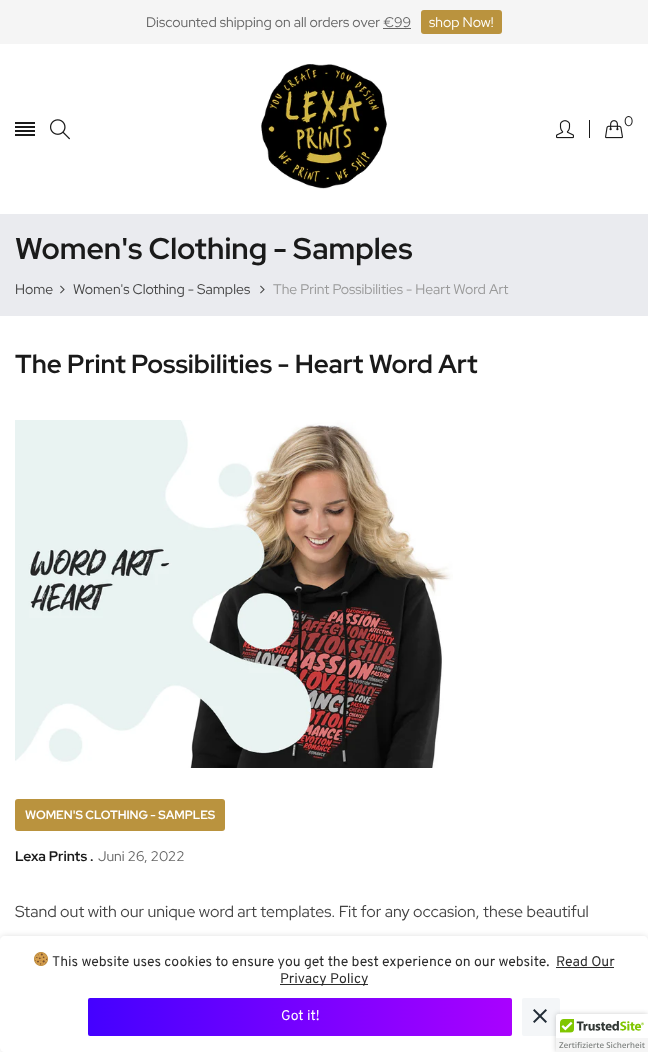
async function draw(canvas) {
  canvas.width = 648
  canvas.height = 1052
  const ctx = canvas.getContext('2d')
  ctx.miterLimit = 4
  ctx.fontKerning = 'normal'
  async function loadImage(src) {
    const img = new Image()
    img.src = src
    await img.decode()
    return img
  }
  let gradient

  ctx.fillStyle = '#fff'
  ctx.fillRect(0, 0, 648, 1052)
  ctx.fillStyle = '#f5f5f5'
  ctx.fillRect(0, 0, 648, 44)
  ctx.font = '14px Red Hat Display'
  ctx.fillStyle = '#666'
  ctx.fillText('Discounted shipping on all orders over €99', 146, 27)
  ctx.fillStyle = '#ba933e'
  ctx.beginPath()
  ctx.roundRect(421, 10, 81, 24, 3)
  ctx.fill()
  ctx.fillStyle = '#fff'
  ctx.fillText('shop Now!', 429, 27)
  ctx.fillStyle = '#666'
  ctx.fillRect(383, 28, 28, 1)
  ctx.fillStyle = '#1a1a1a'
  ctx.fillRect(15, 122, 20, 2)
  ctx.fillRect(15, 126, 20, 2)
  ctx.fillRect(15, 130, 20, 2)
  ctx.fillRect(15, 134, 20, 2)
  ctx.drawImage(await loadImage('image0.png'), 50, 119, 20, 21)
  ctx.drawImage(await loadImage('image1.png'), 261, 64, 126, 125)
  ctx.fillRect(589, 120, 1, 18)
  ctx.drawImage(await loadImage('image2.png'), 556, 120, 18, 19)
  ctx.drawImage(await loadImage('image3.png'), 605, 120, 18, 19)
  ctx.fillText('0', 624, 126)
  ctx.fillStyle = '#eaebef'
  ctx.fillRect(0, 214, 648, 102)
  ctx.font = 'bold 30px Red Hat Display'
  ctx.fillStyle = '#1a1a1a'
  ctx.fillText('Women\'s Clothing - Samples', 15, 259)
  ctx.font = '14px Red Hat Display'
  ctx.fillStyle = '#444'
  ctx.fillText('Home', 15, 294)
  ctx.drawImage(await loadImage('image4.png'), 60, 285, 5, 9)
  ctx.fillText('Women\'s Clothing - Samples', 73, 294)
  ctx.drawImage(await loadImage('image4.png'), 260, 285, 5, 9)
  ctx.fillStyle = '#999'
  ctx.fillText('The Print Possibilities - Heart Word Art', 273, 294)
  ctx.font = 'bold 26px Red Hat Display'
  ctx.fillStyle = '#1a1a1a'
  ctx.fillText('The Print Possibilities - Heart Word Art', 15, 373)
  ctx.drawImage(await loadImage('image5.png'), 15, 420, 438, 348)
  ctx.fillStyle = '#ba933e'
  ctx.beginPath()
  ctx.roundRect(15, 799, 210, 32, 3)
  ctx.fill()
  ctx.font = 'bold 12px Red Hat Display'
  ctx.fillStyle = '#fff'
  ctx.fillText('WOMEN\'S CLOTHING - SAMPLES', 25, 819)
  ctx.font = 'bold 14px Red Hat Display'
  ctx.fillStyle = '#1a1a1a'
  ctx.fillText('Lexa Prints .', 15, 861)
  ctx.font = '14px Red Hat Display'
  ctx.fillStyle = '#666'
  ctx.fillText('Juni 26, 2022', 98, 861)
  ctx.font = '16px Red Hat Display'
  ctx.fillStyle = '#444'
  ctx.fillText('Stand out with our unique word art templates. Fit for any occasion, these beautiful', 15, 917)
  ctx.save()
  ctx.beginPath()
  ctx.moveTo(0, 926)
  ctx.lineTo(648, 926)
  ctx.lineTo(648, 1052)
  ctx.lineTo(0, 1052)
  ctx.closePath()
  ctx.moveTo(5, 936)
  ctx.lineTo(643, 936)
  ctx.bezierCurveTo(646, 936, 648, 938, 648, 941)
  ctx.lineTo(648, 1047)
  ctx.bezierCurveTo(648, 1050, 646, 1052, 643, 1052)
  ctx.lineTo(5, 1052)
  ctx.bezierCurveTo(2, 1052, 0, 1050, 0, 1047)
  ctx.lineTo(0, 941)
  ctx.bezierCurveTo(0, 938, 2, 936, 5, 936)
  ctx.closePath()
  ctx.clip('evenodd')
  ctx.fillStyle = '#0000001f'
  ctx.filter = 'blur(3px)'
  ctx.beginPath()
  ctx.roundRect(0, 936, 648, 116, 5)
  ctx.fill()
  ctx.filter = 'none'
  ctx.restore()
  ctx.drawImage(await loadImage('image6.png'), 34, 952, 14, 14)
  ctx.font = '14px Overpass'
  ctx.fillStyle = '#2d2d2d'
  ctx.fillText('This website uses cookies to ensure you get the best experience on our website.', 52, 966)
  ctx.fillText('Read Our', 556, 966)
  ctx.fillRect(556, 967, 58, 1)
  ctx.fillRect(280, 984, 88, 1)
  ctx.fillText('Privacy Policy', 280, 983)
  gradient = ctx.createLinearGradient(88, 1017, 512, 1017)
  gradient.addColorStop(0, '#4401ff')
  gradient.addColorStop(1, '#a901ff')
  ctx.fillStyle = gradient
  ctx.beginPath()
  ctx.roundRect(88, 998, 424, 38, 2)
  ctx.fill()
  ctx.fillStyle = '#fff'
  ctx.fillText('Got it!', 281, 1020)
  ctx.fillStyle = '#f4f6f8'
  ctx.beginPath()
  ctx.roundRect(522, 998, 38, 38, 2)
  ctx.fill()
  ctx.drawImage(await loadImage('image7.png'), 533, 1009, 14, 14)
  ctx.fillStyle = '#00000033'
  ctx.filter = 'blur(2.5px)'
  ctx.beginPath()
  ctx.roundRect(556, 1014, 92, 38, 2)
  ctx.fill()
  ctx.filter = 'none'
  ctx.fillStyle = '#fff'
  ctx.beginPath()
  ctx.roundRect(556, 1014, 92, 38, [2, 0, 0, 0])
  ctx.fill()
  ctx.drawImage(await loadImage('image8.png'), 556, 1019, 92, 33)
}

draw(document.querySelector('canvas'))
